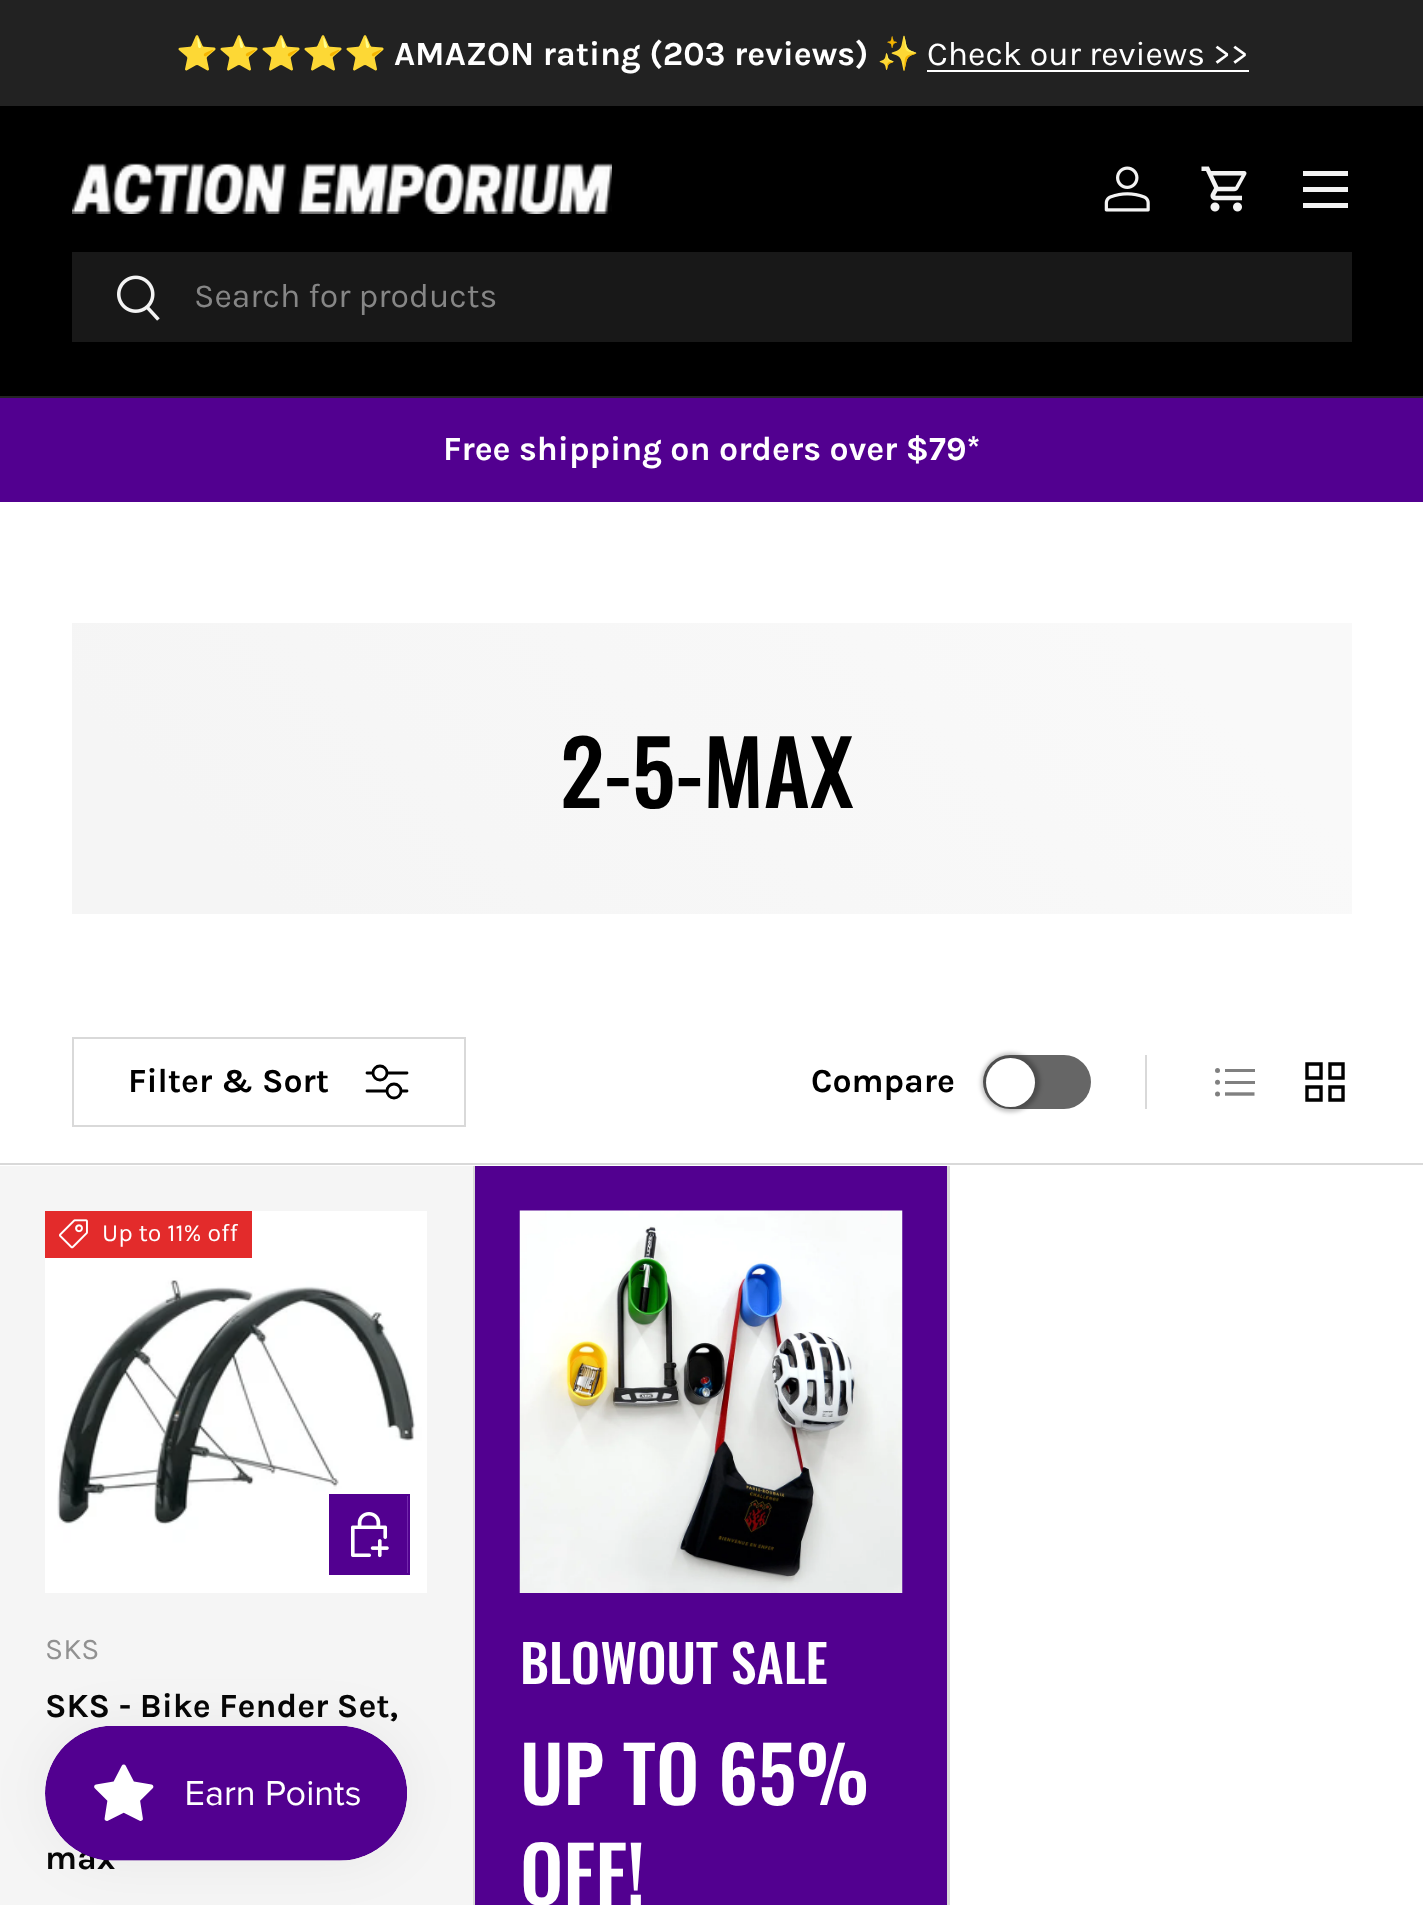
async function draw(canvas) {
  canvas.width = 1423
  canvas.height = 1905
  const ctx = canvas.getContext('2d')
  ctx.miterLimit = 4
  ctx.fontKerning = 'none'
  async function loadImage(src) {
    const img = new Image()
    img.src = src
    await img.decode()
    return img
  }
  let gradient

  ctx.fillStyle = '#fff'
  ctx.fillRect(0, 0, 1423, 1905)
  ctx.fillStyle = '#222'
  ctx.fillRect(0, 0, 1423, 106)
  ctx.font = '33.75px Noto Color Emoji'
  ctx.fillStyle = '#fff'
  ctx.fillText('⭐⭐⭐⭐⭐', 176, 65)
  ctx.font = 'bold 33.75px Karla'
  ctx.fillText('AMAZON rating (203 reviews)', 394, 65)
  ctx.font = '33.75px Noto Color Emoji'
  ctx.fillText('✨', 877, 65)
  ctx.font = '33.75px Karla'
  ctx.fillText('Check our reviews >>', 927, 65)
  ctx.fillRect(927, 70, 322, 2)
  ctx.fillStyle = '#000'
  ctx.fillRect(0, 106, 1423, 290)
  ctx.fillStyle = '#242424'
  ctx.fillRect(0, 396, 1423, 2)
  ctx.drawImage(await loadImage('image0.png'), 72, 163, 540, 51)
  ctx.drawImage(await loadImage('image1.png'), 1104, 166, 46, 46)
  ctx.drawImage(await loadImage('image2.png'), 1201, 166, 46, 46)
  ctx.fillStyle = '#f3f3f3'
  ctx.fillRect(1303, 171, 45, 5)
  ctx.fillRect(1303, 203, 45, 5)
  ctx.fillRect(1303, 187, 45, 5)
  ctx.fillStyle = '#181818'
  ctx.fillRect(72, 252, 1280, 90)
  ctx.drawImage(await loadImage('image3.png'), 117, 275, 43, 46)
  ctx.fillStyle = '#868686'
  ctx.fillText('Search for products', 194, 307)
  ctx.fillStyle = '#520090'
  ctx.fillRect(0, 398, 1423, 104)
  ctx.font = 'bold 33.75px Karla'
  ctx.fillStyle = '#fff'
  ctx.fillText('Free shipping on orders over $79*', 443, 460)
  gradient = ctx.createLinearGradient(308, 1158, 1116, 378)
  gradient.addColorStop(0.13, '#f5f5f5')
  gradient.addColorStop(0.86, '#f9f9f9')
  ctx.fillStyle = gradient
  ctx.fillRect(72, 623, 1280, 291)
  ctx.font = '500 88.5px Oswald'
  ctx.fillStyle = '#000'
  ctx.fillText('2-5-MAX', 560, 808)
  ctx.strokeStyle = '#d9d9d9'
  ctx.lineWidth = 2
  ctx.strokeRect(73, 1038, 392, 88)
  ctx.font = 'bold 33.75px Karla'
  ctx.fillText('Filter & Sort', 128, 1092)
  ctx.beginPath()
  ctx.moveTo(367, 1073)
  ctx.lineTo(407, 1073)
  ctx.moveTo(367, 1091)
  ctx.lineTo(407, 1091)
  ctx.strokeStyle = '#000'
  ctx.lineWidth = 2.8
  ctx.lineCap = 'round'
  ctx.lineJoin = 'round'
  ctx.stroke()
  ctx.fillStyle = '#fff'
  ctx.beginPath()
  ctx.arc(380, 1073, 7, 0, 2 * Math.PI)
  ctx.fill()
  ctx.stroke()
  ctx.beginPath()
  ctx.arc(394, 1091, 7, 0, 2 * Math.PI)
  ctx.fill()
  ctx.stroke()
  ctx.fillStyle = '#666'
  ctx.beginPath()
  ctx.roundRect(983, 1055, 108, 54, 27)
  ctx.fill()
  ctx.fillStyle = '#00000040'
  ctx.filter = 'blur(2px)'
  ctx.beginPath()
  ctx.roundRect(981, 1053, 59, 59, 29.5)
  ctx.fill()
  ctx.filter = 'none'
  ctx.fillStyle = '#fff'
  ctx.beginPath()
  ctx.arc(1010.5, 1082.5, 24.5, 0, 2 * Math.PI)
  ctx.fill()
  ctx.fillStyle = '#000'
  ctx.fillText('Compare', 811, 1092)
  ctx.fillStyle = '#d9d9d9'
  ctx.fillRect(1145, 1055, 2, 54)
  ctx.fillStyle = '#808080'
  ctx.beginPath()
  ctx.arc(1217.5, 1070.6, 2.5, 0, 2 * Math.PI)
  ctx.fill()
  ctx.fillRect(1225, 1069, 30, 3)
  ctx.beginPath()
  ctx.arc(1217.5, 1082.3, 2.5, 0, 2 * Math.PI)
  ctx.fill()
  ctx.fillRect(1225, 1081, 30, 3)
  ctx.beginPath()
  ctx.arc(1217.5, 1093.9, 2.5, 0, 2 * Math.PI)
  ctx.fill()
  ctx.beginPath()
  ctx.moveTo(1225, 1094)
  ctx.lineTo(1254.5, 1094)
  ctx.strokeStyle = '#808080'
  ctx.lineWidth = 3.4
  ctx.lineCap = 'butt'
  ctx.lineJoin = 'miter'
  ctx.stroke()
  ctx.beginPath()
  ctx.moveTo(1307, 1064)
  ctx.lineTo(1321, 1064)
  ctx.lineTo(1321, 1078)
  ctx.lineTo(1307, 1078)
  ctx.closePath()
  ctx.moveTo(1330, 1064)
  ctx.lineTo(1343, 1064)
  ctx.lineTo(1343, 1078)
  ctx.lineTo(1330, 1078)
  ctx.closePath()
  ctx.moveTo(1307, 1087)
  ctx.lineTo(1321, 1087)
  ctx.lineTo(1321, 1100)
  ctx.lineTo(1307, 1100)
  ctx.closePath()
  ctx.moveTo(1330, 1087)
  ctx.lineTo(1343, 1087)
  ctx.lineTo(1343, 1100)
  ctx.lineTo(1330, 1100)
  ctx.closePath()
  ctx.strokeStyle = '#000'
  ctx.stroke()
  ctx.fillStyle = '#d9d9d9'
  ctx.fillRect(0, 1163, 1423, 2)
  ctx.beginPath()
  ctx.moveTo(475, 1166)
  ctx.lineTo(475, 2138)
  ctx.lineTo(472, 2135)
  ctx.lineTo(472, 1166)
  ctx.closePath()
  ctx.fill()
  ctx.fillStyle = '#f5f5f5'
  ctx.fillRect(0, 1166, 473, 739)
  ctx.drawImage(await loadImage('image4.png'), 45, 1211, 382, 382)
  ctx.fillStyle = '#e32b2b'
  ctx.fillRect(45, 1211, 207, 47)
  ctx.drawImage(await loadImage('image5.png'), 59, 1219, 29, 30)
  ctx.font = '24.75px Karla'
  ctx.fillStyle = '#fff'
  ctx.fillText('Up to 11% off', 102, 1241)
  ctx.fillStyle = '#7429ad'
  ctx.fillRect(407, 1496, 1, 77)
  gradient = ctx.createLinearGradient(175, 1505, 410, 1564)
  gradient.addColorStop(0.6, '#7429ad')
  gradient.addColorStop(0.6, '#520090')
  gradient.addColorStop(1, '#520090')
  ctx.fillStyle = gradient
  ctx.fillRect(331, 1496, 76, 77)
  ctx.strokeStyle = '#520090'
  ctx.lineWidth = 2
  ctx.strokeRect(330, 1495, 79, 79)
  ctx.drawImage(await loadImage('image6.png'), 351, 1512, 38, 46)
  ctx.font = '30px Karla'
  ctx.fillStyle = '#919191'
  ctx.fillText('SKS', 45, 1659)
  ctx.font = 'bold 33.75px Karla'
  ctx.fillStyle = '#070707'
  ctx.fillText('SKS - Bike Fender Set,', 45, 1717)
  ctx.fillText('max', 45, 1869)
  ctx.fillStyle = '#d9d9d9'
  ctx.beginPath()
  ctx.moveTo(950, 1166)
  ctx.lineTo(950, 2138)
  ctx.lineTo(947, 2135)
  ctx.lineTo(947, 1166)
  ctx.closePath()
  ctx.fill()
  ctx.fillStyle = '#520090'
  ctx.fillRect(475, 1166, 472, 739)
  ctx.drawImage(await loadImage('image7.png'), 519, 1210, 384, 383)
  ctx.font = '500 52px Oswald'
  ctx.fillStyle = '#fff'
  ctx.fillText('BLOWOUT SALE', 520, 1684)
  ctx.font = '500 77px Oswald'
  ctx.fillText('UP TO 65%', 520, 1805)
  ctx.fillText('OFF!', 520, 1905)
  ctx.fillStyle = '#0000000d'
  ctx.filter = 'blur(28px)'
  ctx.beginPath()
  ctx.roundRect(45, 1726, 362, 135, 67.5)
  ctx.fill()
  ctx.filter = 'none'
  ctx.drawImage(await loadImage('image8.png'), 45, 1726, 362, 135)
}

draw(document.querySelector('canvas'))
